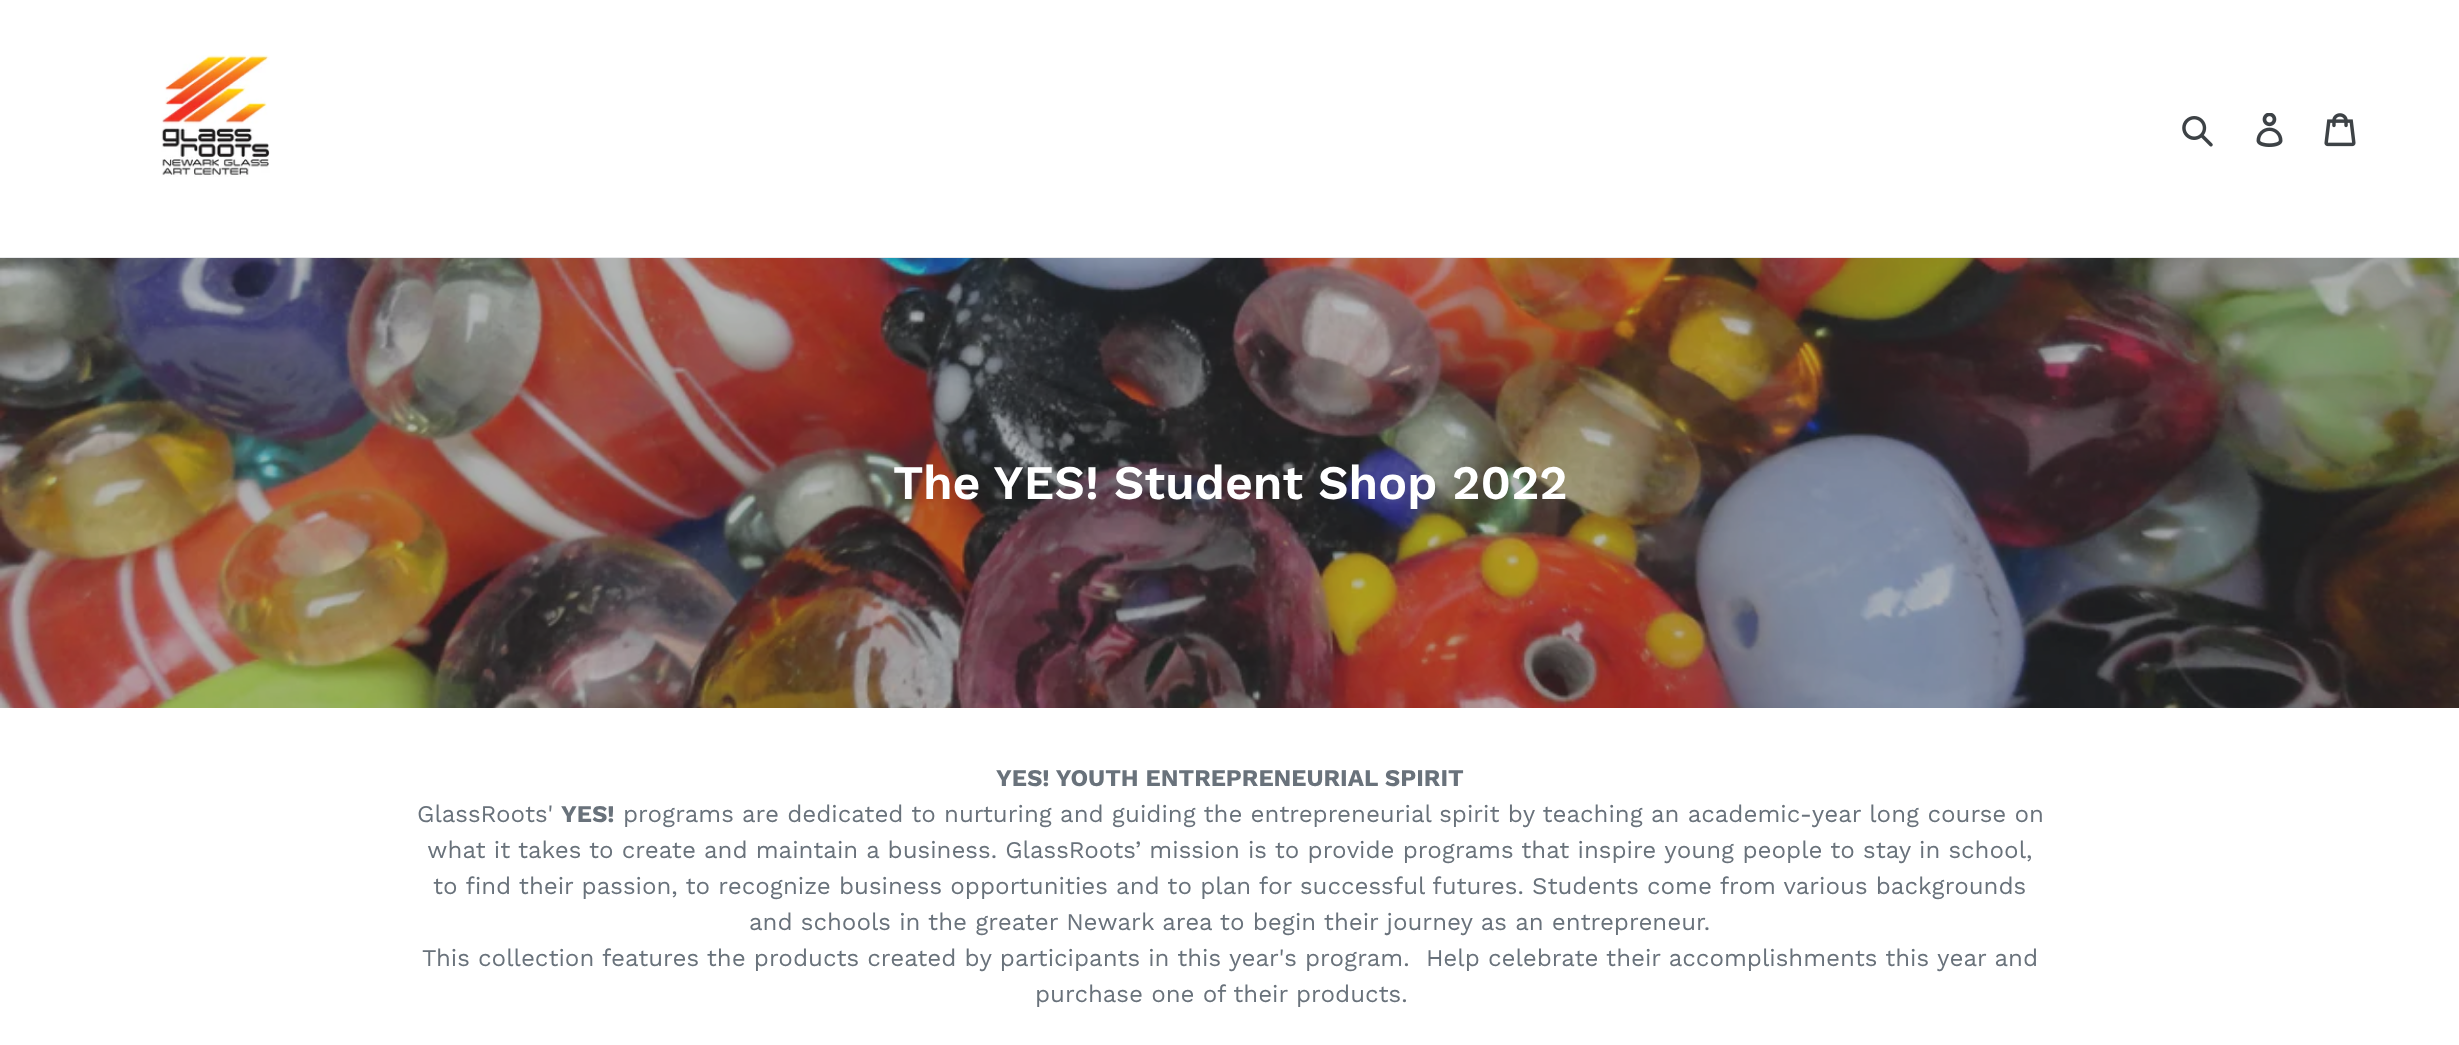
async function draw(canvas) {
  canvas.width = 2459
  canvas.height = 1045
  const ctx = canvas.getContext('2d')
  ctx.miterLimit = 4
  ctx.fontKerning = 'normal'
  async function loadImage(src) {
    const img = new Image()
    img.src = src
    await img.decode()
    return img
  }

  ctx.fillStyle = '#fff'
  ctx.fillRect(0, 0, 2459, 1045)
  ctx.fillStyle = '#e8e9eb'
  ctx.fillRect(0, 257, 2459, 1)
  ctx.drawImage(await loadImage('image0.png'), 161, 55, 109, 122)
  ctx.drawImage(await loadImage('image1.png'), 2182, 116, 31, 31)
  ctx.drawImage(await loadImage('image2.png'), 2256, 113, 27, 34)
  ctx.drawImage(await loadImage('image3.png'), 2324, 113, 32, 34)
  ctx.drawImage(await loadImage('image4.png'), 0, 258, 2459, 450)
  ctx.font = '600 48px Work Sans'
  ctx.fillStyle = '#fff'
  ctx.fillText('The YES! Student Shop 2022', 893, 499)
  ctx.font = 'bold 24px Work Sans'
  ctx.fillStyle = '#69727b'
  ctx.fillText('YES! YOUTH ENTREPRENEURIAL SPIRIT', 996, 786)
  ctx.font = '24px Work Sans'
  ctx.fillText('GlassRoots\'', 417, 822)
  ctx.font = 'bold 24px Work Sans'
  ctx.fillText('YES!', 561, 822)
  ctx.font = '24px Work Sans'
  ctx.fillText('programs are dedicated to nurturing and guiding the entrepreneurial spirit by teaching an academic-year long course on', 623, 822)
  ctx.fillText('what it takes to create and maintain a business. GlassRoots’ mission is to provide programs that inspire young people to stay in school,', 427, 858)
  ctx.fillText('to find their passion, to recognize business opportunities and to plan for successful futures. Students come from various backgrounds', 433, 894)
  ctx.fillText('and schools in the greater Newark area to begin their journey as an entrepreneur.', 749, 930)
  ctx.fillText('This collection features the products created by participants in this year\'s program.  Help celebrate their accomplishments this year and', 422, 966)
  ctx.fillText('purchase one of their products.', 1035, 1002)
}

draw(document.querySelector('canvas'))
